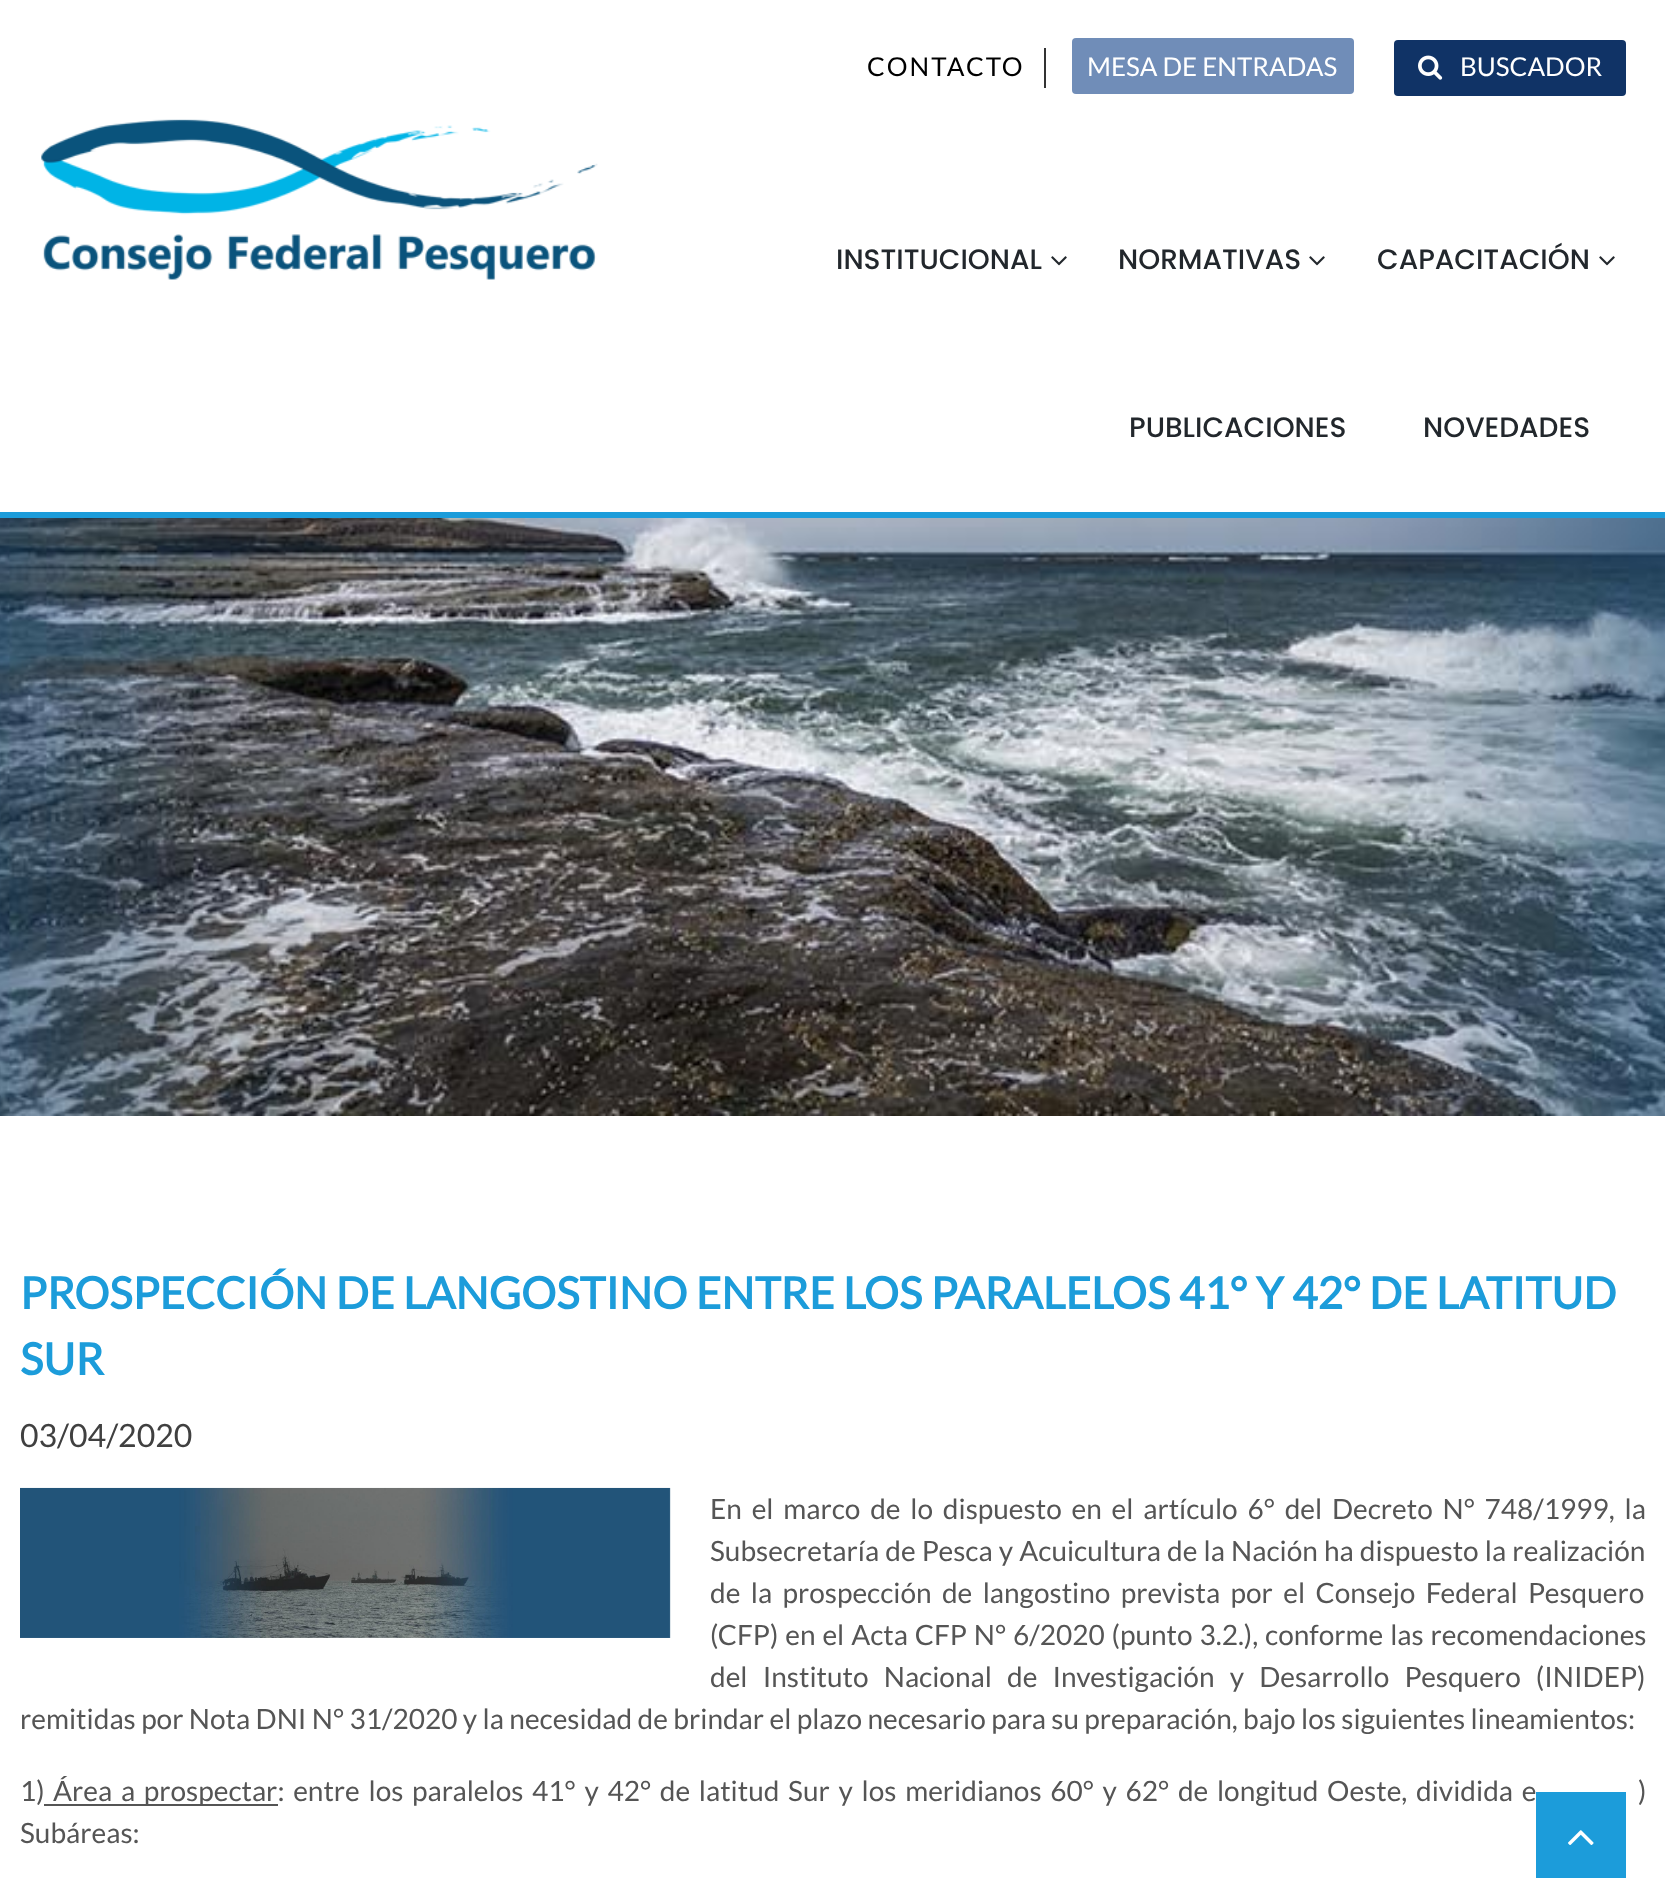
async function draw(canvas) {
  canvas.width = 1665
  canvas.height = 1893
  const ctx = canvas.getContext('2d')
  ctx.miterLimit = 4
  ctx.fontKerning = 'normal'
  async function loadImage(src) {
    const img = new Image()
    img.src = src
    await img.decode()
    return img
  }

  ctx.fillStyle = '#fff'
  ctx.fillRect(0, 0, 1665, 1893)
  ctx.fillStyle = '#333'
  ctx.fillRect(1044, 48, 2, 40)
  ctx.letterSpacing = '2px'
  ctx.font = '26px Lato'
  ctx.fillStyle = '#000'
  ctx.fillText('CONTACTO', 867, 76)
  ctx.fillStyle = '#708db8'
  ctx.beginPath()
  ctx.roundRect(1072, 38, 282, 56, 4)
  ctx.fill()
  ctx.letterSpacing = '0px'
  ctx.fillStyle = '#fff'
  ctx.fillText('MESA DE ENTRADAS', 1087, 76)
  ctx.fillStyle = '#103366'
  ctx.beginPath()
  ctx.roundRect(1394, 40, 232, 56, 4)
  ctx.fill()
  ctx.drawImage(await loadImage('image0.png'), 1418, 55, 25, 25)
  ctx.fillStyle = '#fff'
  ctx.fillText('BUSCADOR', 1460, 76)
  ctx.drawImage(await loadImage('image1.png'), 41, 119, 557, 161)
  ctx.font = '500 28px Poppins'
  ctx.fillStyle = '#22272c'
  ctx.fillText('INSTITUCIONAL', 836, 269)
  ctx.drawImage(await loadImage('image2.png'), 1051, 256, 16, 10)
  ctx.fillText('NORMATIVAS', 1118, 269)
  ctx.drawImage(await loadImage('image2.png'), 1309, 256, 16, 10)
  ctx.fillText('CAPACITACIÓN', 1377, 269)
  ctx.drawImage(await loadImage('image2.png'), 1599, 256, 16, 10)
  ctx.fillText('PUBLICACIONES', 1129, 437)
  ctx.fillText('NOVEDADES', 1423, 437)
  ctx.fillStyle = '#1c9cda'
  ctx.fillRect(0, 512, 1665, 6)
  ctx.font = 'bold 44px Lato'
  ctx.fillText('PROSPECCIÓN DE LANGOSTINO ENTRE LOS PARALELOS 41° Y 42° DE LATITUD', 20, 1309)
  ctx.fillText('SUR', 20, 1375)
  ctx.font = '32px Lato'
  ctx.fillStyle = '#404040'
  ctx.fillText('03/04/2020', 20, 1447)
  ctx.drawImage(await loadImage('image3.png'), 20, 1487, 651, 151)
  ctx.wordSpacing = '4.4px'
  ctx.font = '28px Lato'
  ctx.fillStyle = '#555'
  ctx.fillText('En el marco de lo dispuesto en el artículo 6° del Decreto N° 748/1999, la', 710, 1519)
  ctx.wordSpacing = '0.75px'
  ctx.fillText('Subsecretaría de Pesca y Acuicultura de la Nación ha dispuesto la realización', 710, 1561)
  ctx.wordSpacing = '5px'
  ctx.fillText('de la prospección de langostino prevista por el Consejo Federal Pesquero', 710, 1603)
  ctx.wordSpacing = '1.5px'
  ctx.fillText('(CFP) en el Acta CFP N° 6/2020 (punto 3.2.), conforme las recomendaciones', 710, 1645)
  ctx.wordSpacing = '9.75px'
  ctx.fillText('del Instituto Nacional de Investigación y Desarrollo Pesquero (INIDEP)', 710, 1687)
  ctx.wordSpacing = '0px'
  ctx.fillText('remitidas por Nota DNI N° 31/2020 y la necesidad de brindar el plazo necesario para su preparación, bajo los siguientes lineamientos:', 20, 1729)
  ctx.fillText('1)', 20, 1801)
  ctx.fillRect(44, 1804, 234, 2)
  ctx.wordSpacing = '3.3px'
  ctx.fillText('Área a prospectar: entre los paralelos 41° y 42° de latitud Sur y los meridianos 60° y 62° de longitud Oeste, dividida e', 53, 1801)
  ctx.fillText(')', 1638, 1801)
  ctx.wordSpacing = '0px'
  ctx.fillText('Subáreas:', 20, 1843)
  ctx.drawImage(await loadImage('image4.png'), 0, 518, 1665, 598)
  ctx.fillStyle = '#1c9cda'
  ctx.fillRect(1536, 1792, 90, 86)
  ctx.drawImage(await loadImage('image5.png'), 1568, 1830, 26, 15)
}

draw(document.querySelector('canvas'))
